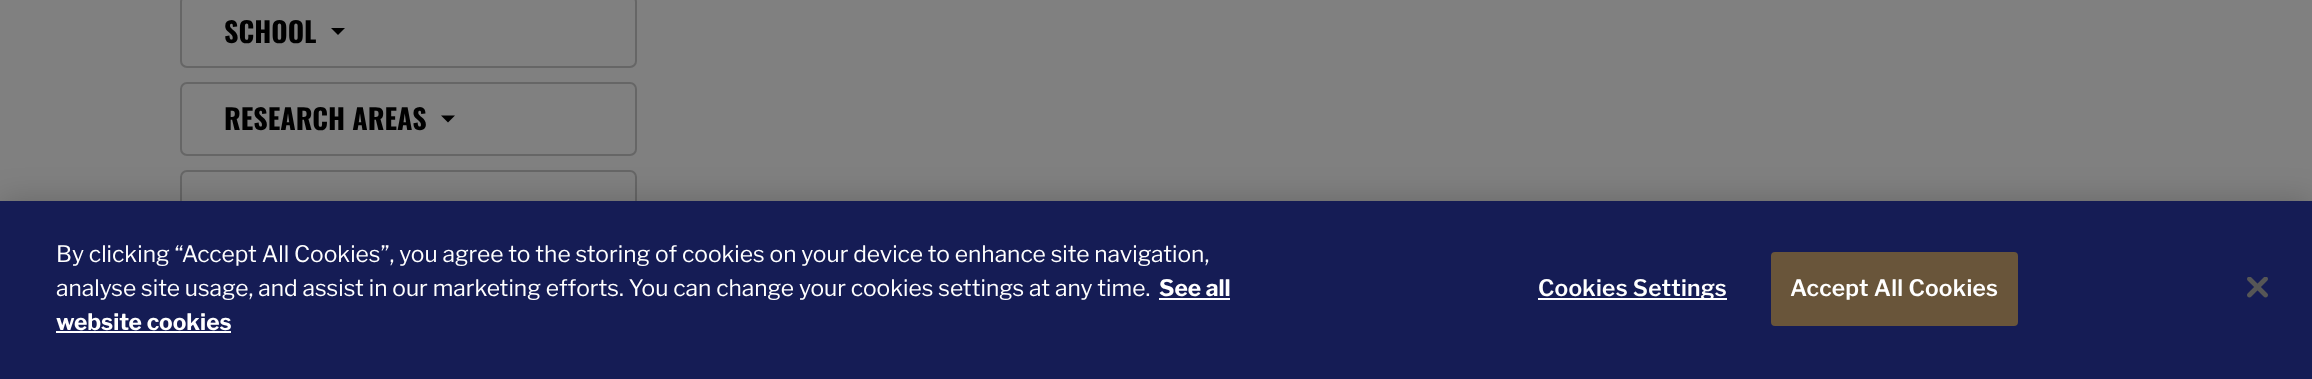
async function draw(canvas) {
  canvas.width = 2312
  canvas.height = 379
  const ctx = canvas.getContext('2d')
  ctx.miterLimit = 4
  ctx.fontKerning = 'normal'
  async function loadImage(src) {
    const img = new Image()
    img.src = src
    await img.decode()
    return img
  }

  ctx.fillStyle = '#808080'
  ctx.fillRect(0, 0, 2312, 379)
  ctx.beginPath()
  ctx.roundRect(181, -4, 455, 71, 6)
  ctx.strokeStyle = '#666'
  ctx.lineWidth = 2
  ctx.stroke()
  ctx.font = 'bold 28px Oswald'
  ctx.fillStyle = '#000'
  ctx.fillText('SCHOOL', 224, 43)
  ctx.beginPath()
  ctx.moveTo(331, 28)
  ctx.lineTo(345, 28)
  ctx.lineTo(338, 35)
  ctx.closePath()
  ctx.fill()
  ctx.beginPath()
  ctx.roundRect(181, 83, 455, 72, 6)
  ctx.stroke()
  ctx.fillText('RESEARCH AREAS', 224, 130)
  ctx.beginPath()
  ctx.moveTo(441, 115.5)
  ctx.lineTo(455, 115.5)
  ctx.lineTo(448, 122.5)
  ctx.closePath()
  ctx.fill()
  ctx.beginPath()
  ctx.roundRect(181, 171, 455, 71, 6)
  ctx.stroke()
  ctx.fillStyle = '#00000033'
  ctx.filter = 'blur(16px)'
  ctx.beginPath()
  ctx.rect(0, 201, 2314, 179)
  ctx.fill()
  ctx.filter = 'none'
  ctx.fillStyle = '#151c55'
  ctx.fillRect(0, 201, 2312, 178)
  ctx.font = '22.75px Libre Franklin'
  ctx.fillStyle = '#fff'
  ctx.fillText('By clicking “Accept All Cookies”, you agree to the storing of cookies on your device to enhance site navigation,', 56, 262)
  ctx.fillText('analyse site usage, and assist in our marketing efforts. You can change your cookies settings at any time.', 56, 296)
  ctx.font = 'bold 22.75px Libre Franklin'
  ctx.fillText('See all', 1159, 296)
  ctx.fillRect(1159, 298, 71, 2)
  ctx.fillText('website cookies', 56, 330)
  ctx.fillRect(56, 331, 175, 2)
  ctx.fillRect(1538, 298, 189, 2)
  ctx.letterSpacing = '0.25px'
  ctx.font = '600 22.75px Libre Franklin'
  ctx.fillText('Cookies Settings', 1538, 296)
  ctx.fillStyle = '#69553a'
  ctx.beginPath()
  ctx.roundRect(1772, 253, 245, 72, 3)
  ctx.fill()
  ctx.strokeStyle = '#69553a'
  ctx.stroke()
  ctx.fillStyle = '#fff'
  ctx.fillText('Accept All Cookies', 1790, 296)
  ctx.drawImage(await loadImage('image0.png'), 2247, 277, 21, 21)
}

draw(document.querySelector('canvas'))
